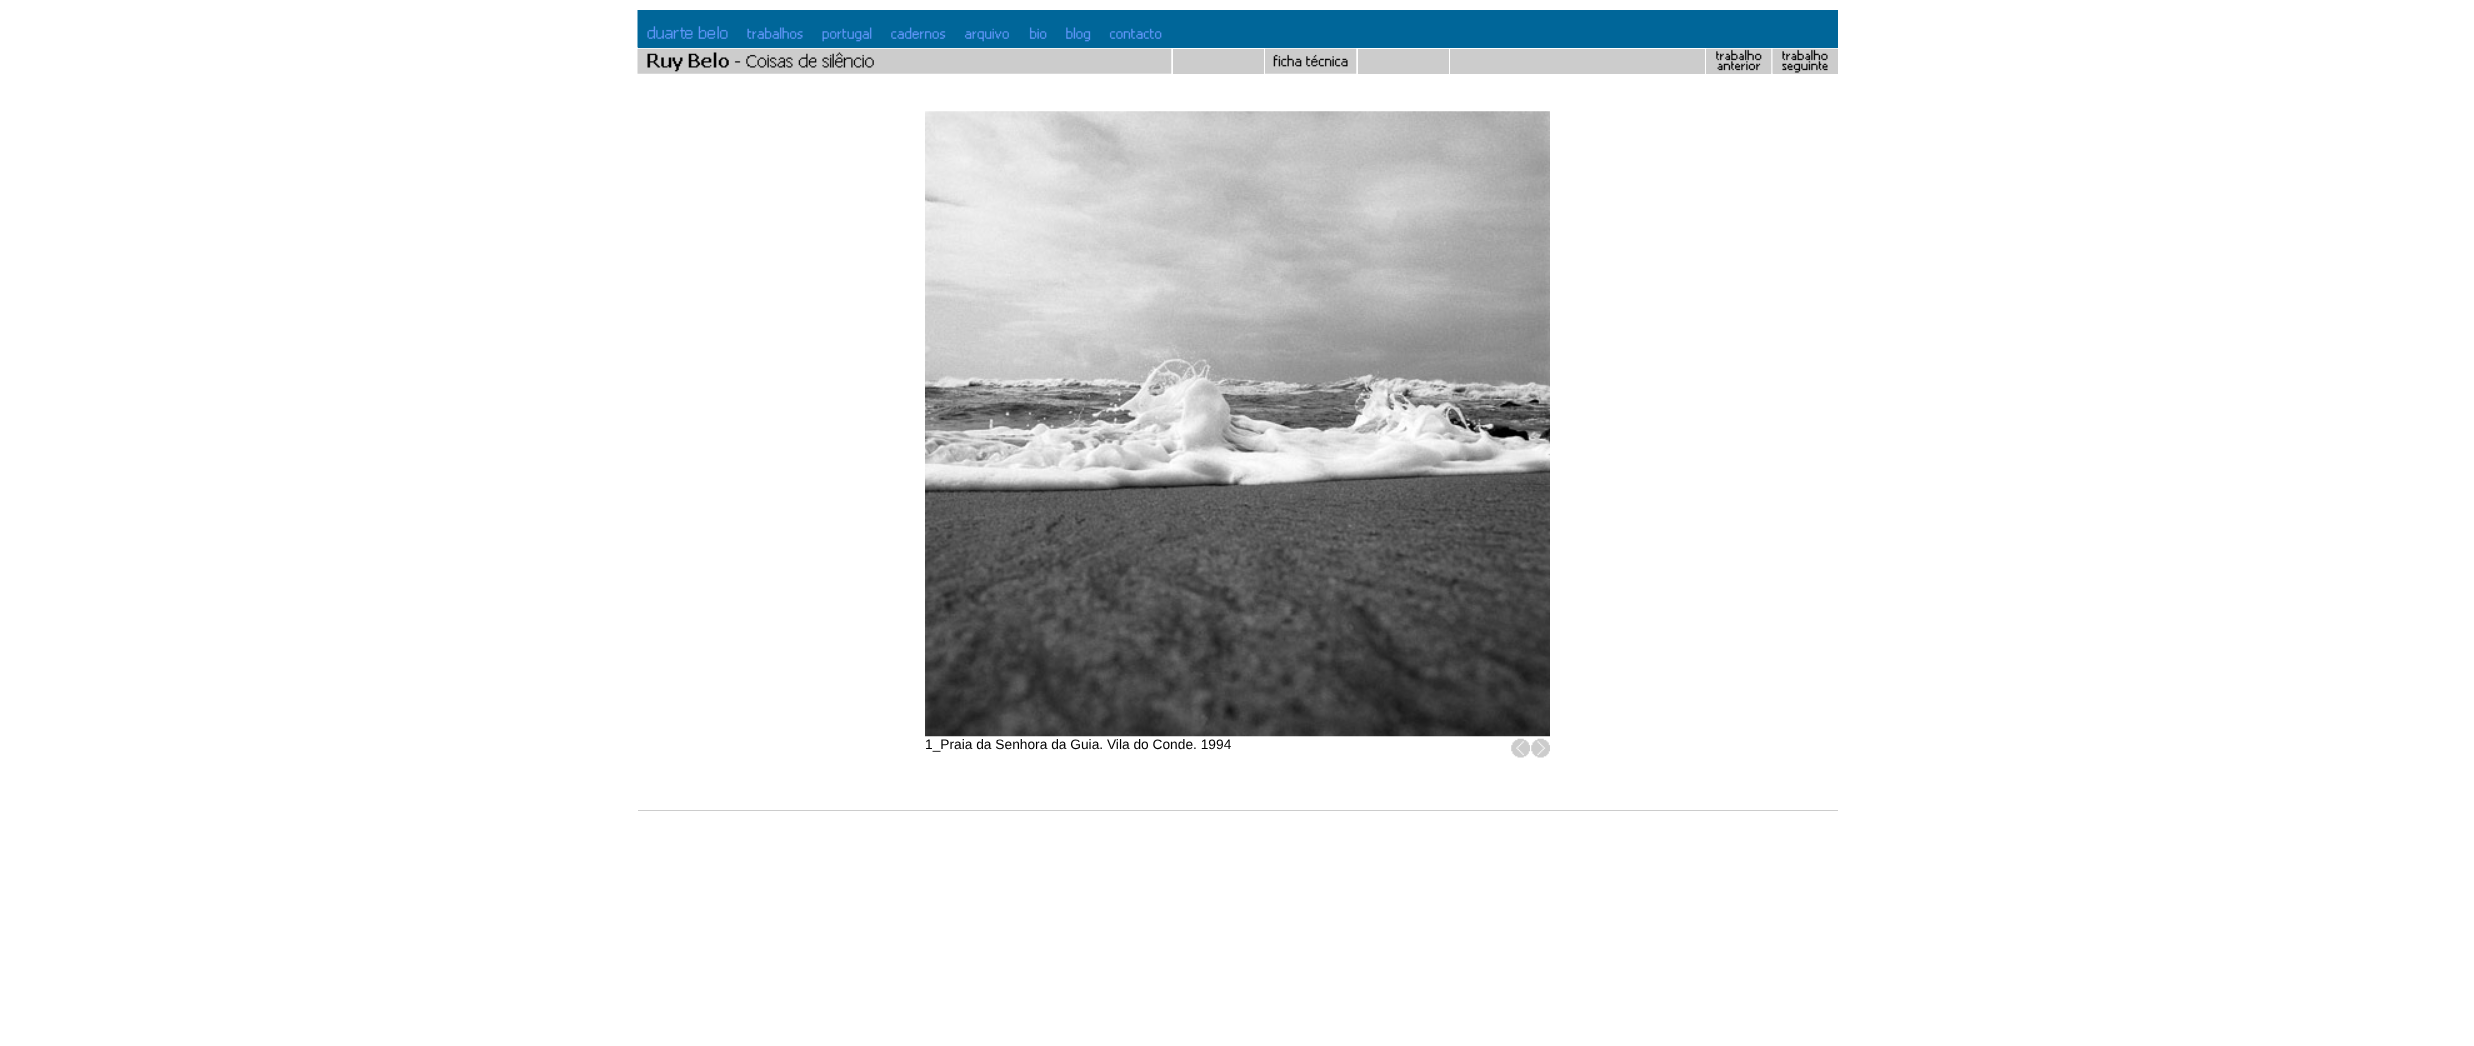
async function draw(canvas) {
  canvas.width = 2474
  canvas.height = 1046
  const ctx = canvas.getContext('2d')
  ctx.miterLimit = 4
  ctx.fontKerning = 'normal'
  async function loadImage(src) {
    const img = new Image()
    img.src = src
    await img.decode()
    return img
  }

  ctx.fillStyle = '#fff'
  ctx.fillRect(0, 0, 2474, 1046)
  ctx.fillStyle = '#ccc'
  ctx.fillRect(638, 810, 1200, 1)
  ctx.fillStyle = '#069'
  ctx.fillRect(638, 10, 1200, 38)
  ctx.drawImage(await loadImage('image0.png'), 637, 10, 91, 38)
  ctx.drawImage(await loadImage('image1.png'), 747, 27, 56, 12)
  ctx.drawImage(await loadImage('image2.png'), 822, 27, 50, 15)
  ctx.drawImage(await loadImage('image3.png'), 891, 27, 55, 12)
  ctx.drawImage(await loadImage('image4.png'), 964, 28, 45, 14)
  ctx.drawImage(await loadImage('image5.png'), 1029, 27, 18, 12)
  ctx.drawImage(await loadImage('image6.png'), 1066, 27, 25, 15)
  ctx.drawImage(await loadImage('image7.png'), 1109, 28, 53, 11)
  ctx.drawImage(await loadImage('image8.png'), 637, 48, 535, 26)
  ctx.fillStyle = '#ccc'
  ctx.fillRect(1173, 49, 91, 25)
  ctx.drawImage(await loadImage('image9.png'), 1265, 48, 92, 26)
  ctx.fillRect(1358, 49, 91, 25)
  ctx.fillRect(1450, 49, 255, 25)
  ctx.fillRect(1706, 49, 65, 25)
  ctx.drawImage(await loadImage('image10.png'), 1706, 48, 66, 26)
  ctx.fillRect(1773, 49, 65, 25)
  ctx.drawImage(await loadImage('image11.png'), 1772, 48, 66, 26)
  ctx.drawImage(await loadImage('image12.png'), 925, 111, 625, 626)
  ctx.font = '13.75px Liberation Sans'
  ctx.fillStyle = '#000'
  ctx.fillText('1_Praia da Senhora da Guia. Vila do Conde. 1994', 925, 749)
  ctx.drawImage(await loadImage('image13.png'), 1511, 738, 19, 20)
  ctx.drawImage(await loadImage('image14.png'), 1531, 738, 19, 20)
}

draw(document.querySelector('canvas'))
